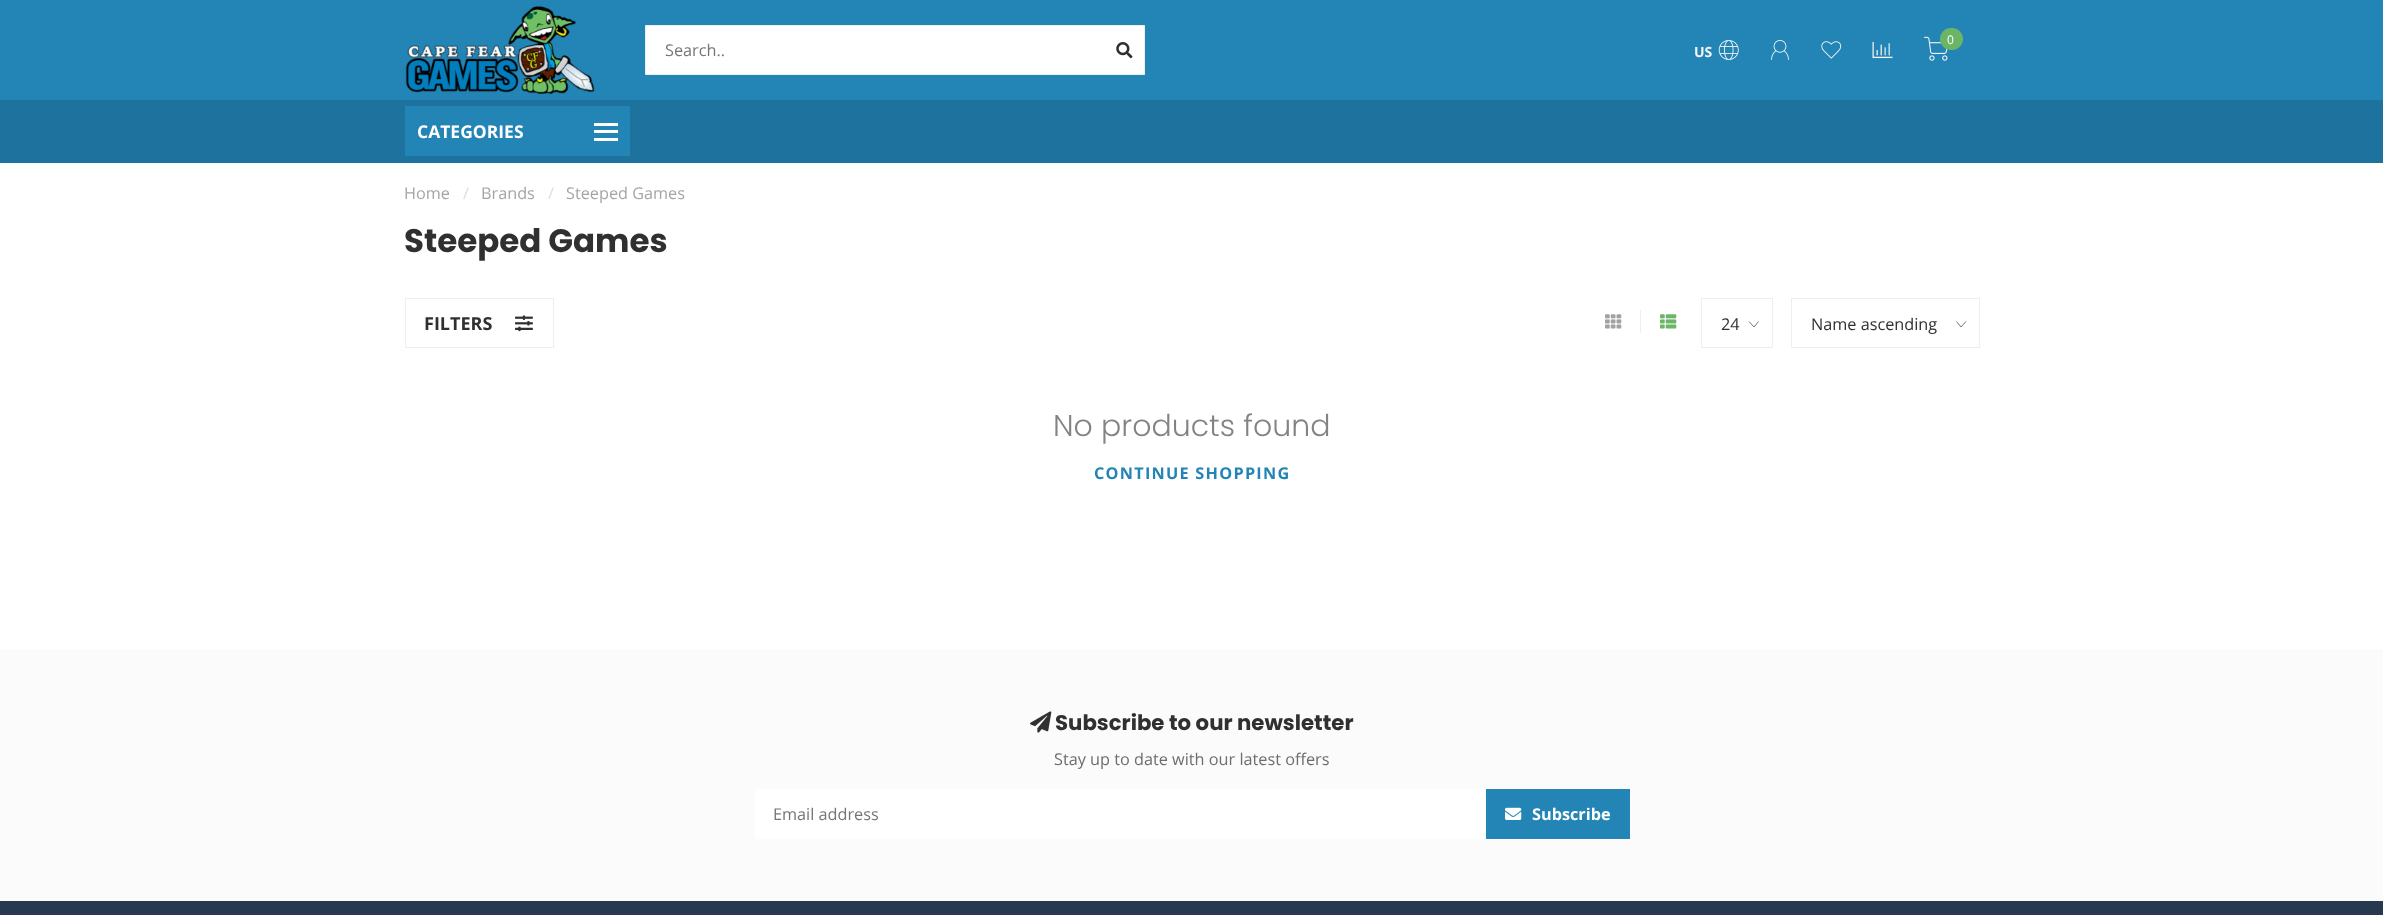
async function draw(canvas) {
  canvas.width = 2383
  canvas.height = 915
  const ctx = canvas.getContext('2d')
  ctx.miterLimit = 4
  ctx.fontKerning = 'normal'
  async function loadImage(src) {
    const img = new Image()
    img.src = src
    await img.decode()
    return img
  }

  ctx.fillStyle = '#fff'
  ctx.fillRect(0, 0, 2383, 915)
  ctx.fillStyle = '#2384b6'
  ctx.fillRect(0, 0, 2383, 100)
  ctx.drawImage(await loadImage('image0.png'), 405, 6, 190, 88)
  ctx.fillStyle = '#fff'
  ctx.beginPath()
  ctx.rect(645.5, 25.5, 499, 49)
  ctx.fill()
  ctx.strokeStyle = '#eee'
  ctx.stroke()
  ctx.font = '16.25px Open Sans'
  ctx.fillStyle = '#757575'
  ctx.fillText('Search..', 665, 56)
  ctx.drawImage(await loadImage('image1.png'), 1116, 42, 17, 17)
  ctx.drawImage(await loadImage('image2.png'), 1923, 36, 25, 25)
  ctx.fillStyle = '#6db566'
  ctx.beginPath()
  ctx.roundRect(1940, 28, 23, 22, 11)
  ctx.fill()
  ctx.font = '12px Open Sans'
  ctx.fillStyle = '#fff'
  ctx.fillText('0', 1947, 44)
  ctx.font = 'bold 14px Open Sans'
  ctx.fillStyle = '#f5f5f5'
  ctx.fillText('US', 1694, 57)
  ctx.drawImage(await loadImage('image3.png'), 1718, 40, 21, 20)
  ctx.drawImage(await loadImage('image4.png'), 1771, 40, 18, 20)
  ctx.drawImage(await loadImage('image5.png'), 1821, 41, 21, 18)
  ctx.drawImage(await loadImage('image6.png'), 1872, 41, 21, 18)
  ctx.fillStyle = '#1d729e'
  ctx.fillRect(0, 100, 2383, 63)
  ctx.fillStyle = '#2384b6'
  ctx.fillRect(405, 106, 225, 50)
  ctx.font = 'bold 17.5px Open Sans'
  ctx.fillStyle = '#fff'
  ctx.fillText('CATEGORIES', 417, 138)
  ctx.fillRect(594, 123, 24, 3)
  ctx.fillRect(594, 130, 24, 3)
  ctx.fillRect(594, 138, 24, 3)
  ctx.font = '16.25px Open Sans'
  ctx.fillStyle = '#a5a5a5'
  ctx.fillText('Home', 404, 199)
  ctx.fillStyle = '#ddd'
  ctx.fillText('/', 463, 199)
  ctx.fillStyle = '#a5a5a5'
  ctx.fillText('Brands', 481, 199)
  ctx.fillStyle = '#ddd'
  ctx.fillText('/', 548, 199)
  ctx.fillStyle = '#a5a5a5'
  ctx.fillText('Steeped Games', 566, 199)
  ctx.font = 'bold 32.5px Poppins'
  ctx.fillStyle = '#303030'
  ctx.fillText('Steeped Games', 404, 252)
  ctx.strokeRect(405.5, 298.5, 148, 49)
  ctx.font = 'bold 18px Open Sans'
  ctx.fillText('FILTERS', 424, 330)
  ctx.drawImage(await loadImage('image7.png'), 515, 315, 18, 17)
  ctx.fillStyle = '#eee'
  ctx.fillRect(1640, 310, 1, 23)
  ctx.drawImage(await loadImage('image8.png'), 1605, 314, 17, 15)
  ctx.drawImage(await loadImage('image9.png'), 1660, 314, 17, 15)
  ctx.beginPath()
  ctx.moveTo(1758.5, 321.5)
  ctx.lineTo(1754, 327)
  ctx.lineTo(1749, 321.5)
  ctx.strokeStyle = '#666'
  ctx.lineWidth = 0.9
  ctx.stroke()
  ctx.strokeStyle = '#eee'
  ctx.lineWidth = 1
  ctx.strokeRect(1701.5, 298.5, 71, 49)
  ctx.font = '16.25px Open Sans'
  ctx.fillStyle = '#303030'
  ctx.fillText('24', 1721, 330)
  ctx.beginPath()
  ctx.moveTo(1966, 321.5)
  ctx.lineTo(1961, 327)
  ctx.lineTo(1956.5, 321.5)
  ctx.strokeStyle = '#666'
  ctx.lineWidth = 0.9
  ctx.stroke()
  ctx.strokeStyle = '#eee'
  ctx.lineWidth = 1
  ctx.strokeRect(1791.5, 298.5, 188, 49)
  ctx.fillText('Name ascending', 1811, 330)
  ctx.font = '300 30px Poppins'
  ctx.fillStyle = '#838383'
  ctx.fillText('No products found', 1053, 436)
  ctx.letterSpacing = '1.25px'
  ctx.font = 'bold 16.25px Open Sans'
  ctx.fillStyle = '#2384b6'
  ctx.fillText('CONTINUE SHOPPING', 1094, 479)
  ctx.fillStyle = '#fbfbfb'
  ctx.fillRect(0, 649, 2383, 252)
  ctx.drawImage(await loadImage('image10.png'), 1030, 711, 22, 22)
  ctx.letterSpacing = '0px'
  ctx.font = 'bold 21.25px Poppins'
  ctx.fillStyle = '#303030'
  ctx.fillText('Subscribe to our newsletter', 1055, 730)
  ctx.font = '16.25px Open Sans'
  ctx.fillStyle = '#6d6d6d'
  ctx.fillText('Stay up to date with our latest offers', 1054, 765)
  ctx.fillStyle = '#fff'
  ctx.fillRect(755, 789, 731, 50)
  ctx.fillStyle = '#757575'
  ctx.fillText('Email address', 773, 820)
  ctx.fillStyle = '#2384b6'
  ctx.fillRect(1486, 789, 144, 50)
  ctx.drawImage(await loadImage('image11.png'), 1505, 807, 17, 13)
  ctx.font = 'bold 16.25px Open Sans'
  ctx.fillStyle = '#fff'
  ctx.fillText('Subscribe', 1532, 820)
  ctx.fillStyle = '#26394e'
  ctx.fillRect(0, 901, 2383, 14)
}

draw(document.querySelector('canvas'))
